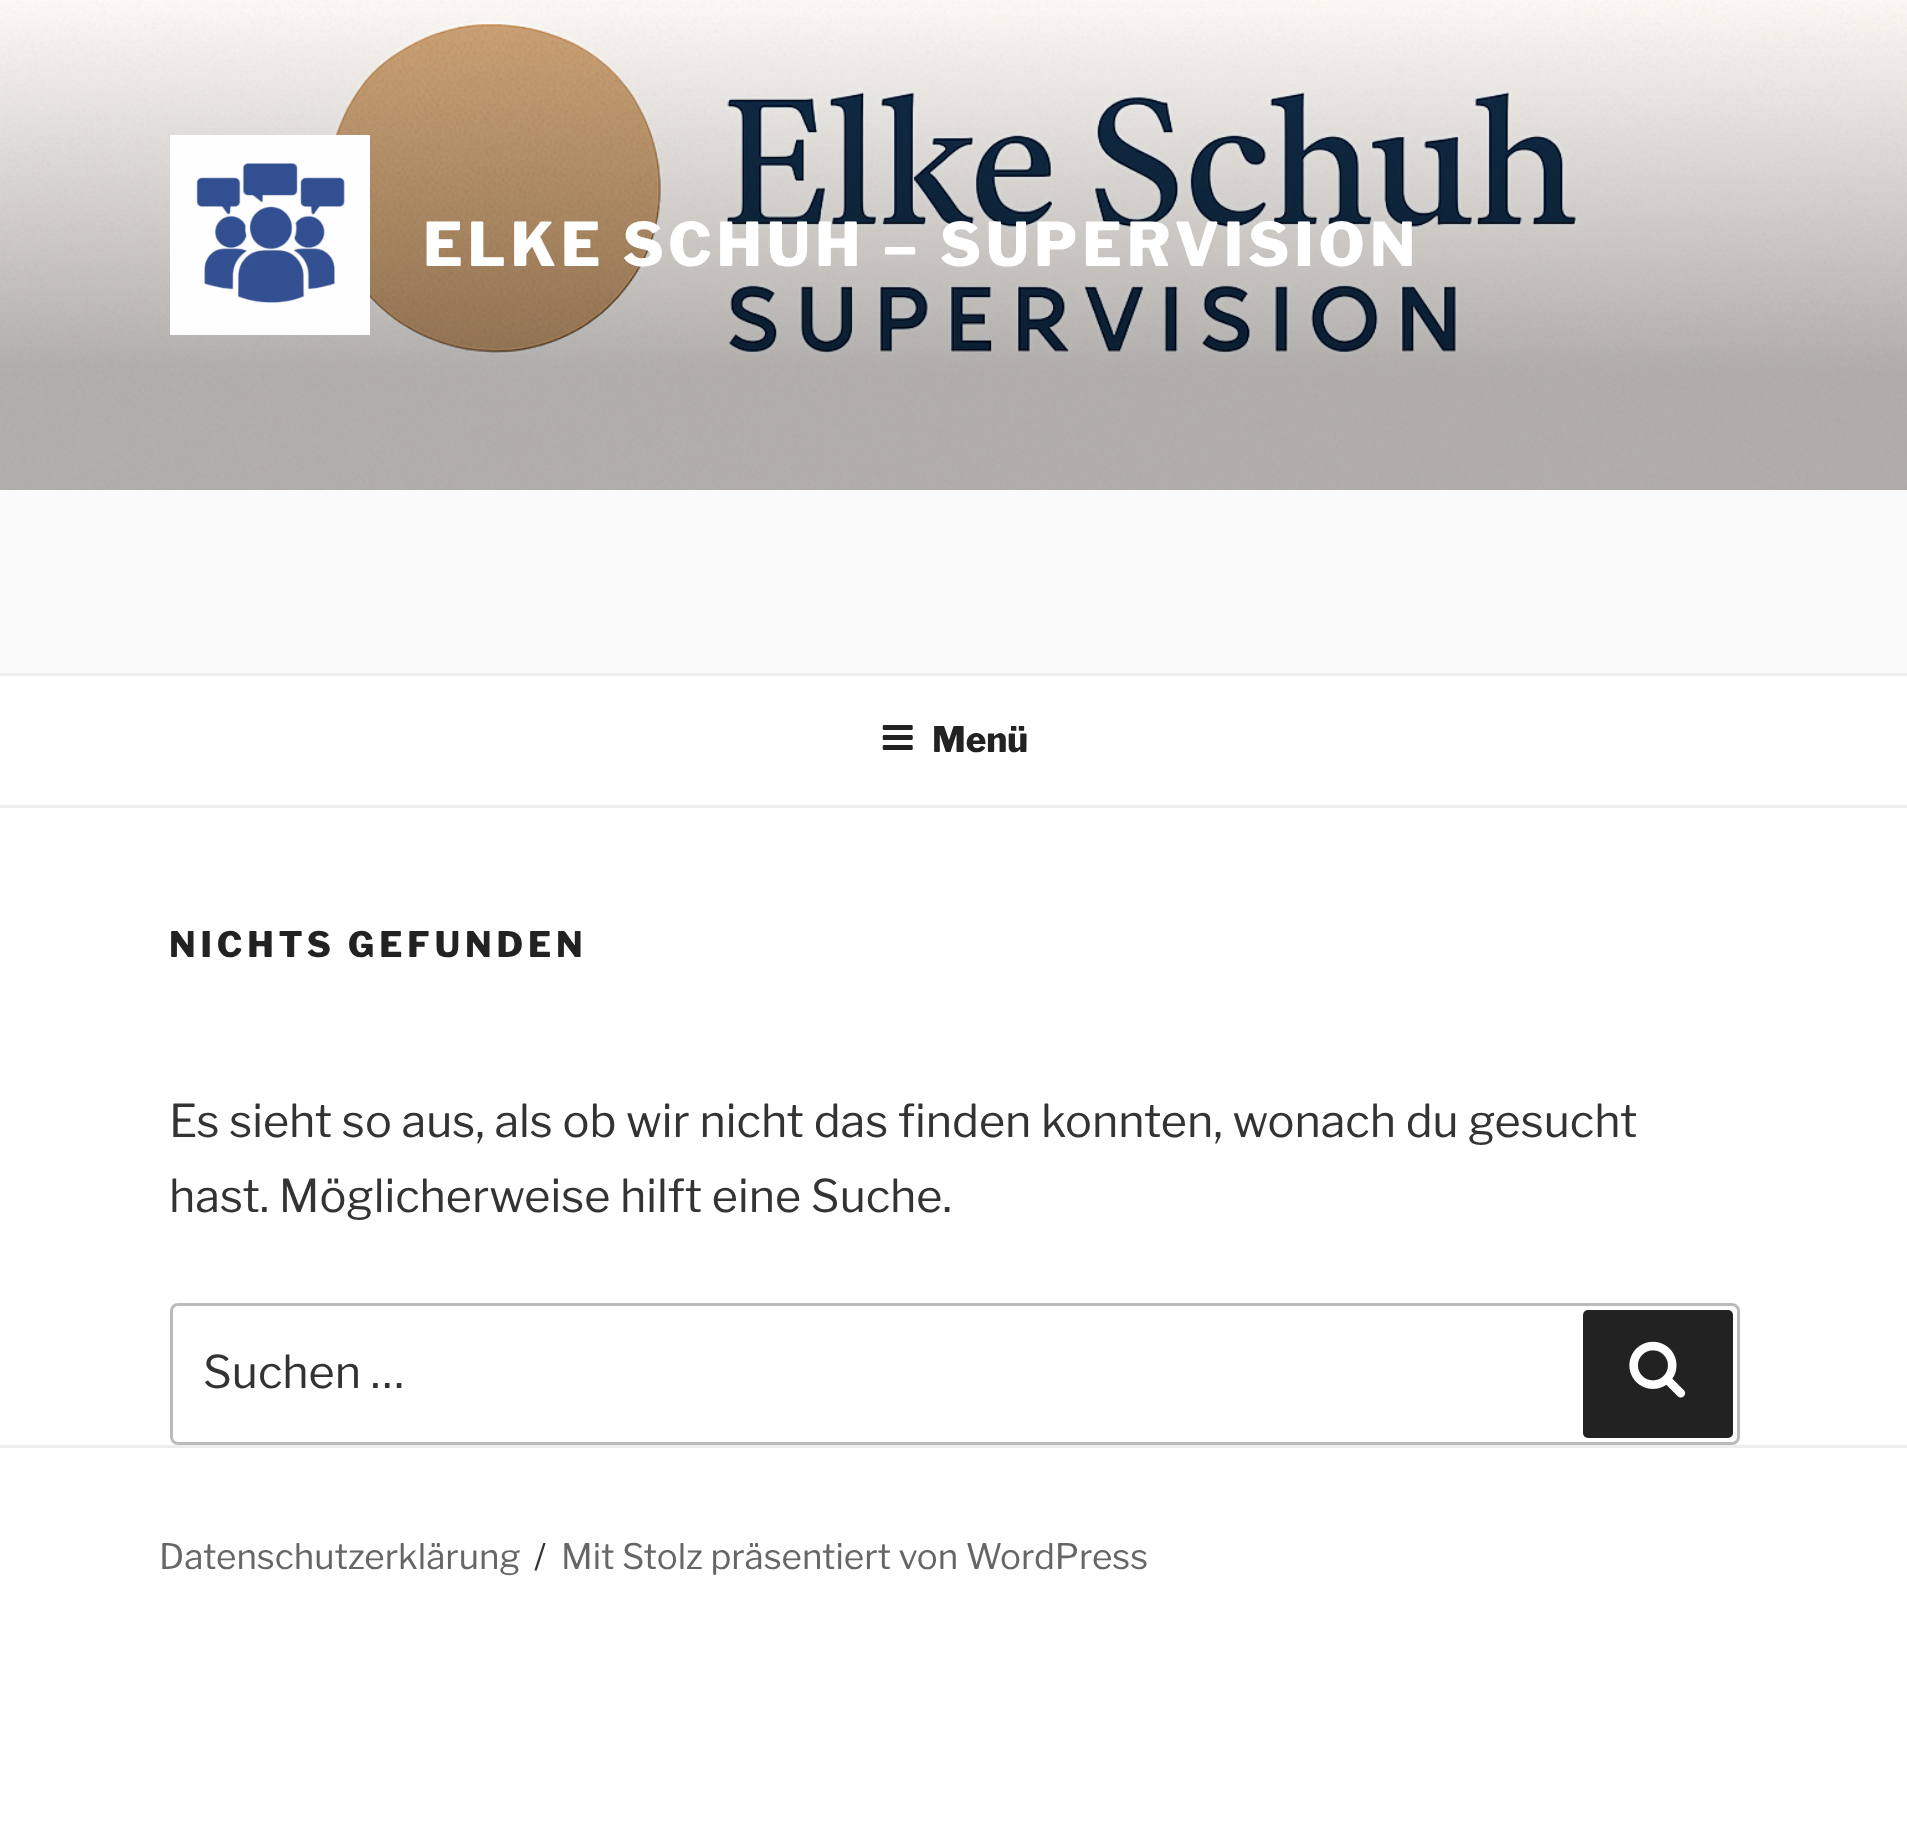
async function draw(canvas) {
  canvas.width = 1907
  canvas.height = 1845
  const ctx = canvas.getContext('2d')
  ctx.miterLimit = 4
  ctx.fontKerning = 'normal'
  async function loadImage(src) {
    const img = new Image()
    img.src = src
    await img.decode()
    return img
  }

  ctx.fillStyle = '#fff'
  ctx.fillRect(0, 0, 1907, 1845)
  ctx.fillStyle = '#fafafa'
  ctx.fillRect(0, 490, 1907, 183)
  ctx.drawImage(await loadImage('image0.png'), 0, 0, 1907, 490)
  ctx.drawImage(await loadImage('image1.png'), 170, 135, 200, 200)
  ctx.letterSpacing = '4.8px'
  ctx.font = '100 60px Libre Franklin'
  ctx.fillStyle = '#fff'
  ctx.fillText('ELKE SCHUH – SUPERVISION', 423, 266)
  ctx.fillStyle = '#eee'
  ctx.fillRect(0, 673, 1907, 3)
  ctx.fillRect(0, 805, 1907, 3)
  ctx.drawImage(await loadImage('image2.png'), 882, 725, 31, 25)
  ctx.letterSpacing = '0px'
  ctx.font = '100 35px Libre Franklin'
  ctx.fillStyle = '#222'
  ctx.fillText('Menü', 932, 752)
  ctx.letterSpacing = '4.9px'
  ctx.fillText('NICHTS GEFUNDEN', 169, 957)
  ctx.letterSpacing = '0px'
  ctx.font = '100 45px "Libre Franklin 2"'
  ctx.fillStyle = '#333'
  ctx.fillText('Es sieht so aus, als ob wir nicht das finden konnten, wonach du gesucht', 169, 1137)
  ctx.fillText('hast. Möglicherweise hilft eine Suche.', 169, 1212)
  ctx.beginPath()
  ctx.roundRect(171.5, 1304.5, 1567, 139, 6.5)
  ctx.strokeStyle = '#bbb'
  ctx.lineWidth = 3
  ctx.stroke()
  ctx.fillText('Suchen …', 203, 1388)
  ctx.fillStyle = '#222'
  ctx.beginPath()
  ctx.roundRect(1583, 1310, 150, 128, 5)
  ctx.fill()
  ctx.drawImage(await loadImage('image3.png'), 1629, 1341, 57, 57)
  ctx.fillStyle = '#eee'
  ctx.fillRect(0, 1445, 1907, 3)
  ctx.font = '100 35px "Libre Franklin 2"'
  ctx.fillStyle = '#666'
  ctx.fillText('Datenschutzerklärung', 159, 1569)
  ctx.fillStyle = '#333'
  ctx.fillText('/', 534, 1569)
  ctx.fillStyle = '#666'
  ctx.fillText('Mit Stolz präsentiert von WordPress', 561, 1569)
}

draw(document.querySelector('canvas'))
